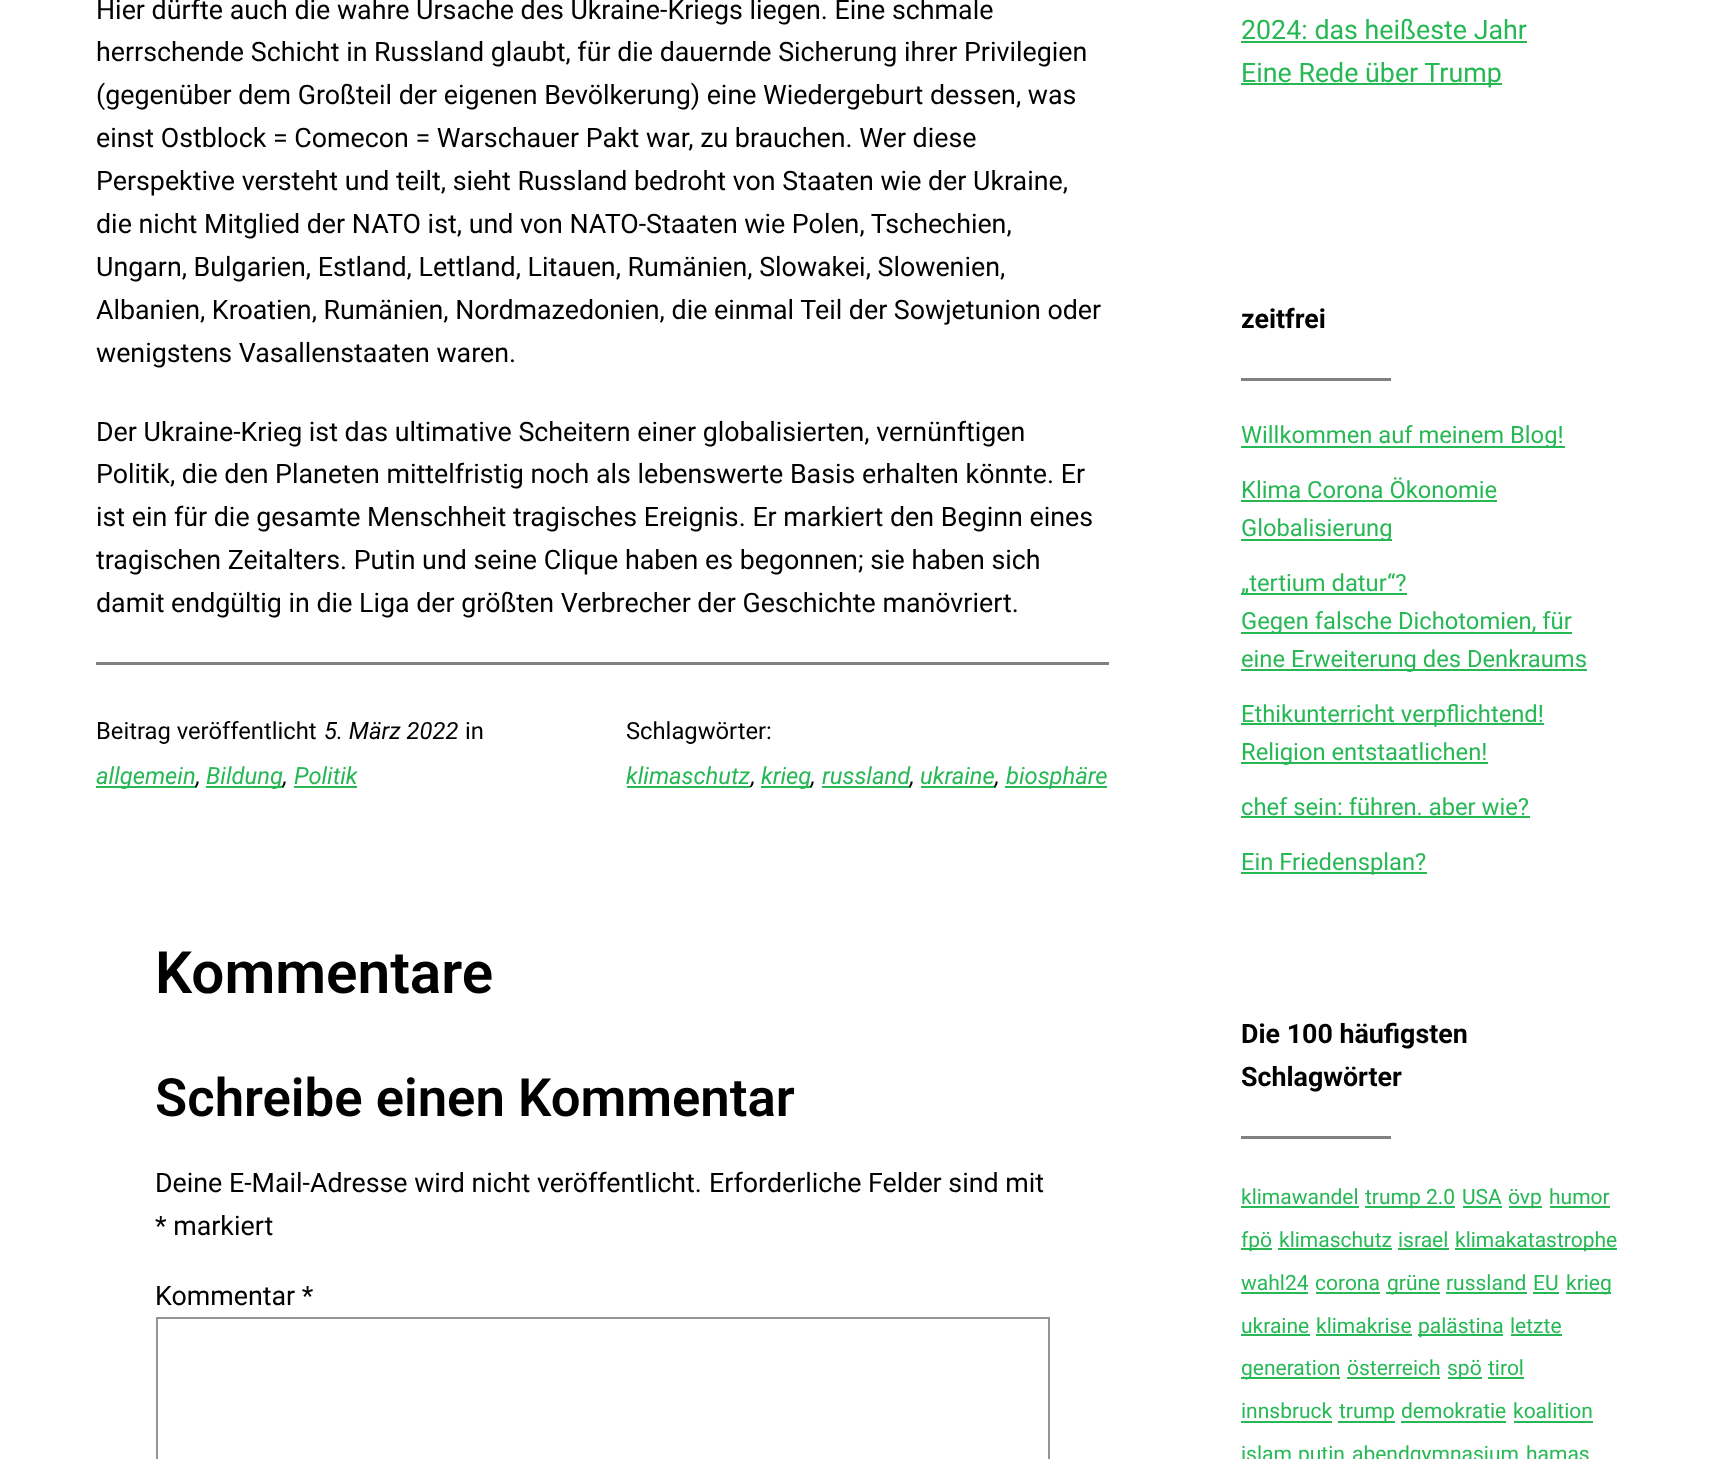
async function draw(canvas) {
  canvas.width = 1715
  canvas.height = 1459
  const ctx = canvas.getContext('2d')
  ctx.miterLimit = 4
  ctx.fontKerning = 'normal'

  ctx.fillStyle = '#fff'
  ctx.fillRect(0, 0, 1715, 1459)
  ctx.font = '26.8px Roboto'
  ctx.fillStyle = '#000'
  ctx.fillText('Hier dürfte auch die wahre Ursache des Ukraine-Kriegs liegen. Eine schmale', 96, 19)
  ctx.fillText('herrschende Schicht in Russland glaubt, für die dauernde Sicherung ihrer Privilegien', 96, 61)
  ctx.fillText('(gegenüber dem Großteil der eigenen Bevölkerung) eine Wiedergeburt dessen, was', 96, 104)
  ctx.fillText('einst Ostblock = Comecon = Warschauer Pakt war, zu brauchen. Wer diese', 96, 147)
  ctx.fillText('Perspektive versteht und teilt, sieht Russland bedroht von Staaten wie der Ukraine,', 96, 190)
  ctx.fillText('die nicht Mitglied der NATO ist, und von NATO-Staaten wie Polen, Tschechien,', 96, 233)
  ctx.fillText('Ungarn, Bulgarien, Estland, Lettland, Litauen, Rumänien, Slowakei, Slowenien,', 96, 276)
  ctx.fillText('Albanien, Kroatien, Rumänien, Nordmazedonien, die einmal Teil der Sowjetunion oder', 96, 319)
  ctx.fillText('wenigstens Vasallenstaaten waren.', 96, 362)
  ctx.fillText('Der Ukraine-Krieg ist das ultimative Scheitern einer globalisierten, vernünftigen', 96, 441)
  ctx.fillText('Politik, die den Planeten mittelfristig noch als lebenswerte Basis erhalten könnte. Er', 96, 483)
  ctx.fillText('ist ein für die gesamte Menschheit tragisches Ereignis. Er markiert den Beginn eines', 96, 526)
  ctx.fillText('tragischen Zeitalters. Putin und seine Clique haben es begonnen; sie haben sich', 96, 569)
  ctx.fillText('damit endgültig in die Liga der größten Verbrecher der Geschichte manövriert.', 96, 612)
  ctx.fillStyle = '#808080'
  ctx.fillRect(96, 662, 1013, 3)
  ctx.font = '23.75px Roboto'
  ctx.fillStyle = '#000'
  ctx.fillText('Beitrag veröffentlicht', 96, 739)
  ctx.font = 'italic 23.75px Roboto'
  ctx.fillText('5. März 2022', 324, 739)
  ctx.font = '23.75px Roboto'
  ctx.fillText('in', 465, 739)
  ctx.fillStyle = '#27b855'
  ctx.fillRect(96, 786, 101, 2)
  ctx.font = 'italic 23.75px Roboto'
  ctx.fillText('allgemein', 96, 784)
  ctx.fillStyle = '#000'
  ctx.fillText(',', 196, 784)
  ctx.fillStyle = '#27b855'
  ctx.fillRect(206, 786, 78, 2)
  ctx.fillText('Bildung', 206, 784)
  ctx.fillStyle = '#000'
  ctx.fillText(',', 283, 784)
  ctx.fillStyle = '#27b855'
  ctx.fillText('Politik', 294, 784)
  ctx.fillRect(294, 786, 63, 2)
  ctx.font = '23.75px Roboto'
  ctx.fillStyle = '#000'
  ctx.fillText('Schlagwörter:', 626, 739)
  ctx.font = 'italic 23.75px Roboto'
  ctx.fillStyle = '#27b855'
  ctx.fillText('klimaschutz', 626, 784)
  ctx.fillRect(627, 786, 123, 2)
  ctx.fillStyle = '#000'
  ctx.fillText(',', 751, 784)
  ctx.fillStyle = '#27b855'
  ctx.fillRect(761, 786, 51, 2)
  ctx.fillText('krieg', 761, 784)
  ctx.fillStyle = '#000'
  ctx.fillText(',', 811, 784)
  ctx.fillStyle = '#27b855'
  ctx.fillText('russland', 822, 784)
  ctx.fillRect(822, 786, 89, 2)
  ctx.fillText('ukraine', 920, 784)
  ctx.fillRect(921, 786, 75, 2)
  ctx.fillRect(1005, 786, 102, 2)
  ctx.fillText('biosphäre', 1006, 784)
  ctx.fillStyle = '#000'
  ctx.fillText(',', 910, 784)
  ctx.fillText(',', 995, 784)
  ctx.font = '600 58.5px Roboto'
  ctx.fillText('Kommentare', 155, 993)
  ctx.font = '600 52.7px Roboto'
  ctx.fillText('Schreibe einen Kommentar', 155, 1116)
  ctx.font = '26.8px Roboto'
  ctx.fillText('Deine E-Mail-Adresse wird nicht veröffentlicht.', 155, 1192)
  ctx.fillText('Erforderliche Felder sind mit', 709, 1192)
  ctx.fillText('* markiert', 155, 1235)
  ctx.fillText('Kommentar *', 155, 1305)
  ctx.strokeStyle = '#949494'
  ctx.lineWidth = 2
  ctx.strokeRect(157, 1318, 892, 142)
  ctx.fillStyle = '#27b855'
  ctx.fillText('2024: das heißeste Jahr', 1241, 39)
  ctx.fillRect(1241, 41, 286, 2)
  ctx.fillRect(1241, 83, 261, 2)
  ctx.fillText('Eine Rede über Trump', 1241, 82)
  ctx.font = 'bold 26.8px Roboto'
  ctx.fillStyle = '#000'
  ctx.fillText('zeitfrei', 1241, 328)
  ctx.fillStyle = '#808080'
  ctx.fillRect(1241, 378, 150, 3)
  ctx.fillStyle = '#27b855'
  ctx.fillRect(1241, 446, 324, 2)
  ctx.font = '23.75px Roboto'
  ctx.fillText('Willkommen auf meinem Blog!', 1241, 443)
  ctx.fillText('Klima Corona Ökonomie', 1241, 498)
  ctx.fillRect(1241, 500, 256, 2)
  ctx.fillRect(1241, 539, 151, 2)
  ctx.fillText('Globalisierung', 1241, 536)
  ctx.fillRect(1241, 593, 166, 2)
  ctx.fillText('„tertium datur“?', 1241, 591)
  ctx.fillRect(1241, 632, 331, 2)
  ctx.fillText('Gegen falsche Dichotomien, für', 1241, 629)
  ctx.fillRect(1241, 669, 346, 2)
  ctx.fillText('eine Erweiterung des Denkraums', 1241, 667)
  ctx.fillRect(1241, 723, 303, 2)
  ctx.fillText('Ethikunterricht verpflichtend!', 1241, 722)
  ctx.fillRect(1241, 762, 247, 2)
  ctx.fillText('Religion entstaatlichen!', 1241, 760)
  ctx.fillText('chef sein: führen. aber wie?', 1241, 815)
  ctx.fillRect(1241, 816, 289, 2)
  ctx.fillRect(1241, 872, 186, 2)
  ctx.fillText('Ein Friedensplan?', 1241, 870)
  ctx.font = 'bold 26.8px Roboto'
  ctx.fillStyle = '#000'
  ctx.fillText('Die 100 häufigsten', 1241, 1043)
  ctx.fillText('Schlagwörter', 1241, 1086)
  ctx.fillStyle = '#808080'
  ctx.fillRect(1241, 1136, 150, 3)
  ctx.font = '21px Roboto'
  ctx.fillStyle = '#27b855'
  ctx.fillText('klimawandel', 1241, 1204)
  ctx.fillRect(1241, 1206, 118, 2)
  ctx.fillRect(1365, 1206, 90, 2)
  ctx.fillText('trump 2.0', 1365, 1204)
  ctx.fillText('USA', 1462, 1204)
  ctx.fillRect(1463, 1206, 39, 2)
  ctx.fillRect(1509, 1206, 33, 2)
  ctx.fillText('övp', 1508, 1204)
  ctx.fillText('humor', 1549, 1204)
  ctx.fillRect(1550, 1206, 60, 2)
  ctx.fillRect(1241, 1248, 31, 2)
  ctx.fillText('fpö', 1241, 1247)
  ctx.fillText('klimaschutz', 1279, 1247)
  ctx.fillRect(1278, 1248, 114, 2)
  ctx.fillText('israel', 1398, 1247)
  ctx.fillRect(1398, 1248, 51, 2)
  ctx.fillRect(1455, 1248, 162, 2)
  ctx.fillText('klimakatastrophe', 1455, 1247)
  ctx.fillText('wahl24', 1241, 1290)
  ctx.fillRect(1241, 1292, 67, 2)
  ctx.fillText('corona', 1315, 1290)
  ctx.fillRect(1316, 1292, 64, 2)
  ctx.fillRect(1386, 1292, 54, 2)
  ctx.fillText('grüne', 1387, 1290)
  ctx.fillText('russland', 1446, 1290)
  ctx.fillRect(1446, 1292, 81, 2)
  ctx.fillText('EU', 1533, 1290)
  ctx.fillRect(1533, 1292, 26, 2)
  ctx.fillRect(1566, 1292, 45, 2)
  ctx.fillText('krieg', 1566, 1290)
  ctx.fillText('ukraine', 1241, 1333)
  ctx.fillRect(1241, 1334, 69, 2)
  ctx.fillText('klimakrise', 1316, 1333)
  ctx.fillRect(1316, 1334, 96, 2)
  ctx.fillRect(1418, 1334, 85, 2)
  ctx.fillText('palästina', 1418, 1333)
  ctx.fillText('letzte', 1510, 1333)
  ctx.fillRect(1511, 1334, 51, 2)
  ctx.fillRect(1241, 1377, 99, 2)
  ctx.fillText('generation', 1241, 1375)
  ctx.fillText('österreich', 1347, 1375)
  ctx.fillRect(1347, 1377, 93, 2)
  ctx.fillRect(1448, 1377, 34, 2)
  ctx.fillText('spö', 1447, 1375)
  ctx.fillText('tirol', 1488, 1375)
  ctx.fillRect(1488, 1377, 36, 2)
  ctx.fillText('innsbruck', 1241, 1418)
  ctx.fillRect(1241, 1421, 91, 2)
  ctx.fillRect(1338, 1421, 57, 2)
  ctx.fillText('trump', 1339, 1418)
  ctx.fillText('demokratie', 1401, 1418)
  ctx.fillRect(1401, 1421, 105, 2)
  ctx.fillText('koalition', 1513, 1418)
  ctx.fillRect(1514, 1421, 79, 2)
  ctx.fillText('islam', 1241, 1461)
  ctx.fillText('putin', 1298, 1461)
  ctx.fillText('abendgymnasium', 1352, 1461)
  ctx.fillText('hamas', 1526, 1461)
}

draw(document.querySelector('canvas'))
